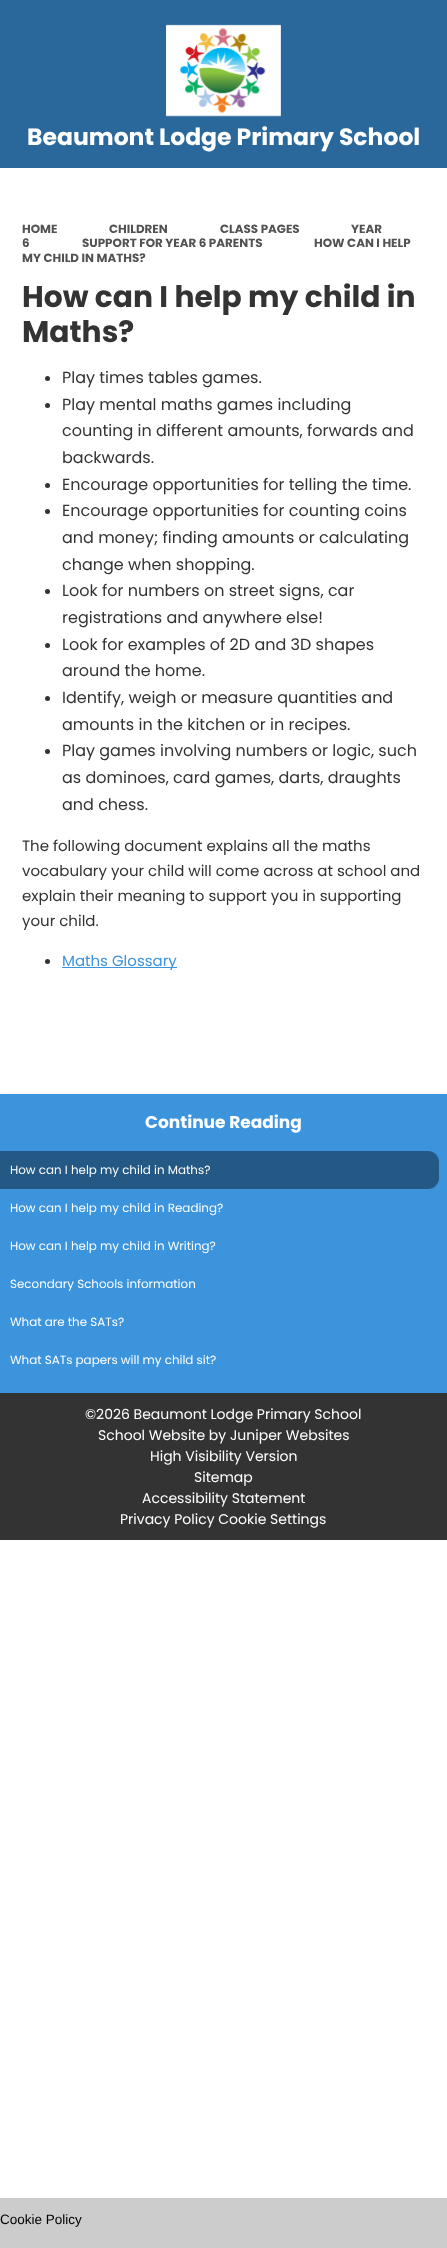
async function draw(canvas) {
  canvas.width = 447
  canvas.height = 2248
  const ctx = canvas.getContext('2d')
  ctx.miterLimit = 4
  ctx.fontKerning = 'normal'
  async function loadImage(src) {
    const img = new Image()
    img.src = src
    await img.decode()
    return img
  }

  ctx.fillStyle = '#ccc'
  ctx.fillRect(0, 0, 447, 2248)
  ctx.fillStyle = '#fff'
  ctx.fillRect(0, 1540, 447, 658)
  ctx.fillStyle = '#2a689b'
  ctx.fillRect(0, 0, 447, 168)
  ctx.drawImage(await loadImage('image0.png'), 166, 24, 115, 93)
  ctx.font = 'bold 23.5px Poppins'
  ctx.fillStyle = '#fff'
  ctx.fillText('Beaumont Lodge Primary School', 27, 145)
  ctx.fillRect(0, 168, 447, 926)
  ctx.font = 'bold 11.9px Poppins'
  ctx.fillStyle = '#525252'
  ctx.fillText('HOME', 22, 233)
  ctx.fillText('CHILDREN', 109, 233)
  ctx.fillText('CLASS PAGES', 220, 233)
  ctx.fillText('YEAR', 351, 233)
  ctx.fillText('6', 22, 247)
  ctx.fillText('SUPPORT FOR YEAR 6 PARENTS', 82, 247)
  ctx.fillText('HOW CAN I HELP', 314, 247)
  ctx.fillText('MY CHILD IN MATHS?', 22, 262)
  ctx.font = 'bold 29.75px Poppins'
  ctx.fillStyle = '#333'
  ctx.fillText('How can I help my child in', 22, 307)
  ctx.fillText('Maths?', 22, 342)
  ctx.beginPath()
  ctx.arc(47.5, 378.5, 2.5, 0, 2 * Math.PI)
  ctx.fill()
  ctx.font = '16px Poppins'
  ctx.fillText('Play times tables games.', 62, 383)
  ctx.beginPath()
  ctx.arc(47.5, 405.5, 2.5, 0, 2 * Math.PI)
  ctx.fill()
  ctx.fillText('Play mental maths games including', 62, 410)
  ctx.fillText('counting in different amounts, forwards and', 62, 436)
  ctx.fillText('backwards.', 62, 463)
  ctx.beginPath()
  ctx.arc(47.5, 485.5, 2.5, 0, 2 * Math.PI)
  ctx.fill()
  ctx.fillText('Encourage opportunities for telling the time.', 62, 490)
  ctx.beginPath()
  ctx.arc(47.5, 511.5, 2.5, 0, 2 * Math.PI)
  ctx.fill()
  ctx.fillText('Encourage opportunities for counting coins', 62, 516)
  ctx.fillText('and money; finding amounts or calculating', 62, 543)
  ctx.fillText('change when shopping.', 62, 570)
  ctx.beginPath()
  ctx.arc(47.5, 591.5, 2.5, 0, 2 * Math.PI)
  ctx.fill()
  ctx.fillText('Look for numbers on street signs, car', 62, 596)
  ctx.fillText('registrations and anywhere else!', 62, 623)
  ctx.beginPath()
  ctx.arc(47.5, 645.5, 2.5, 0, 2 * Math.PI)
  ctx.fill()
  ctx.fillText('Look for examples of 2D and 3D shapes', 62, 650)
  ctx.fillText('around the home.', 62, 676)
  ctx.beginPath()
  ctx.arc(47.5, 698.5, 2.5, 0, 2 * Math.PI)
  ctx.fill()
  ctx.fillText('Identify, weigh or measure quantities and', 62, 703)
  ctx.fillText('amounts in the kitchen or in recipes.', 62, 730)
  ctx.beginPath()
  ctx.arc(47.5, 751.5, 2.5, 0, 2 * Math.PI)
  ctx.fill()
  ctx.fillText('Play games involving numbers or logic, such', 62, 756)
  ctx.fillText('as dominoes, card games, darts, draughts', 62, 783)
  ctx.fillText('and chess.', 62, 810)
  ctx.font = '15px Poppins'
  ctx.fillText('The following document explains all the maths', 22, 851)
  ctx.fillText('vocabulary your child will come across at school and', 22, 876)
  ctx.fillText('explain their meaning to support you in supporting', 22, 901)
  ctx.fillText('your child.', 22, 926)
  ctx.beginPath()
  ctx.arc(47.5, 961.5, 2.5, 0, 2 * Math.PI)
  ctx.fill()
  ctx.fillStyle = '#3c94dd'
  ctx.fillRect(62, 967, 115, 1)
  ctx.fillText('Maths Glossary', 62, 966)
  ctx.fillStyle = '#33333333'
  ctx.filter = 'blur(4px)'
  ctx.beginPath()
  ctx.rect(0, 1098, 447, 299)
  ctx.fill()
  ctx.filter = 'none'
  ctx.fillStyle = '#3c94dd'
  ctx.fillRect(0, 1094, 447, 299)
  ctx.font = 'bold 17px Poppins'
  ctx.fillStyle = '#fff'
  ctx.fillText('Continue Reading', 145, 1128)
  ctx.fillStyle = '#245985'
  ctx.beginPath()
  ctx.roundRect(0, 1151, 439, 38, [0, 11, 11, 0])
  ctx.fill()
  ctx.font = '11.9px Poppins'
  ctx.fillStyle = '#fff'
  ctx.fillText('How can I help my child in Maths?', 10, 1174)
  ctx.fillText('How can I help my child in Reading?', 10, 1212)
  ctx.fillText('How can I help my child in Writing?', 10, 1250)
  ctx.fillText('Secondary Schools information', 10, 1288)
  ctx.fillText('What are the SATs?', 10, 1326)
  ctx.fillText('What SATs papers will my child sit?', 10, 1364)
  ctx.fillStyle = '#333'
  ctx.fillRect(0, 1393, 447, 147)
  ctx.font = '14px Poppins'
  ctx.fillStyle = '#fff'
  ctx.fillText('©2026 Beaumont Lodge Primary School', 85, 1419)
  ctx.fillText('School Website by Juniper Websites', 98, 1440)
  ctx.fillText('High Visibility Version', 150, 1461)
  ctx.fillText('Sitemap', 194, 1482)
  ctx.fillText('Accessibility Statement', 142, 1503)
  ctx.fillText('Privacy Policy Cookie Settings', 120, 1524)
  ctx.font = '13.5px Liberation Sans'
  ctx.fillStyle = '#000'
  ctx.fillText('Cookie Policy', 0, 2224)
}

draw(document.querySelector('canvas'))
